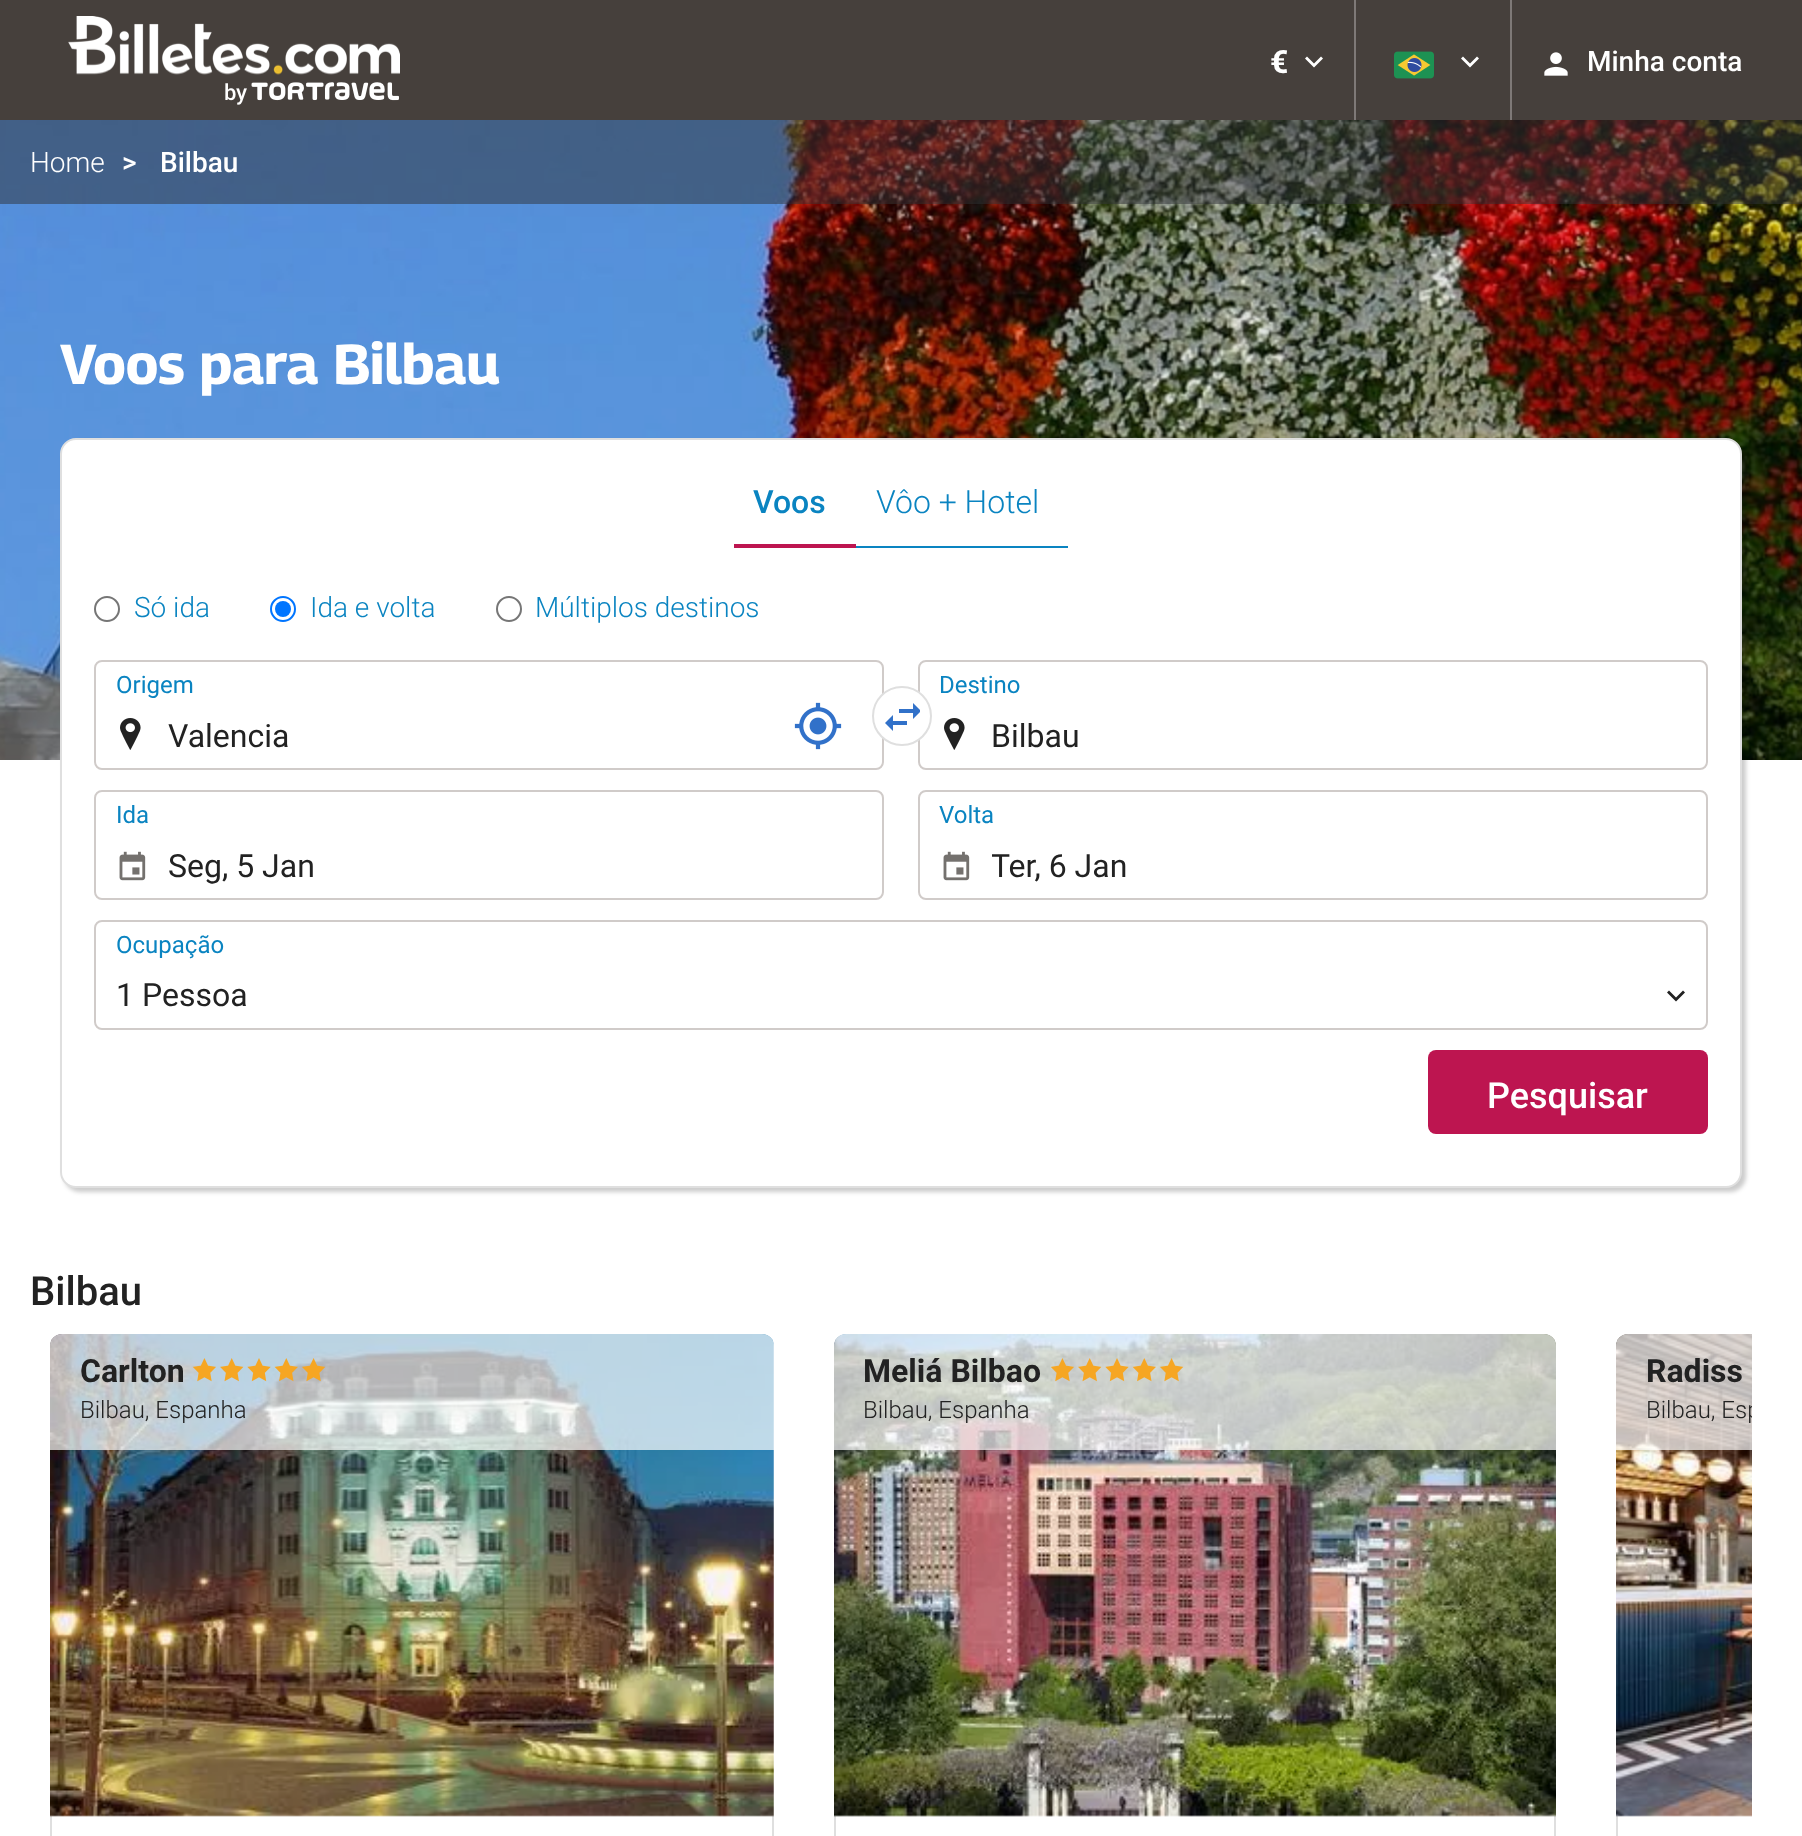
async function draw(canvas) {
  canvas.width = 1802
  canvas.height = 1836
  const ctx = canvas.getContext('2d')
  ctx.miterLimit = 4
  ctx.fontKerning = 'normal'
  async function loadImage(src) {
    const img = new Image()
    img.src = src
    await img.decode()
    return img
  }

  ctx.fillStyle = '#fff'
  ctx.fillRect(0, 0, 1802, 1836)
  ctx.fillStyle = '#46403c'
  ctx.fillRect(0, 0, 1802, 120)
  ctx.drawImage(await loadImage('image0.png'), 68, 16, 332, 89)
  ctx.fillStyle = '#7e7977'
  ctx.fillRect(1354, 0, 2, 120)
  ctx.font = 'bold 32px Roboto'
  ctx.fillStyle = '#fff'
  ctx.fillText('€', 1270, 73)
  ctx.beginPath()
  ctx.moveTo(1307, 56.5)
  ctx.lineTo(1314, 63.5)
  ctx.lineTo(1321, 56.5)
  ctx.lineTo(1323, 58.5)
  ctx.lineTo(1314, 67.5)
  ctx.lineTo(1305, 58.5)
  ctx.closePath()
  ctx.fill('evenodd')
  ctx.fillStyle = '#7e7977'
  ctx.fillRect(1510, 0, 2, 120)
  ctx.drawImage(await loadImage('image1.png'), 1394, 51, 40, 28)
  ctx.fillStyle = '#fff'
  ctx.beginPath()
  ctx.moveTo(1463, 56.5)
  ctx.lineTo(1470, 63.5)
  ctx.lineTo(1477, 56.5)
  ctx.lineTo(1479, 58.5)
  ctx.lineTo(1470, 67.5)
  ctx.lineTo(1461, 58.5)
  ctx.closePath()
  ctx.fill('evenodd')
  ctx.drawImage(await loadImage('image2.png'), 1544, 52, 24, 24)
  ctx.font = '500 28px Roboto'
  ctx.fillText('Minha conta', 1587, 71)
  ctx.drawImage(await loadImage('image3.png'), 0, 120, 1802, 640)
  ctx.fillStyle = '#30323580'
  ctx.fillRect(0, 120, 1802, 84)
  ctx.font = '300 28px Roboto'
  ctx.fillStyle = '#fff'
  ctx.fillText('Home', 30, 172)
  ctx.font = '500 28px Roboto'
  ctx.fillText('>', 122, 172)
  ctx.fillText('Bilbau', 160, 172)
  ctx.font = 'bold 56px Georama'
  ctx.fillText('Voos para Bilbau', 60, 384)
  ctx.fillStyle = '#00000033'
  ctx.filter = 'blur(2px)'
  ctx.beginPath()
  ctx.roundRect(64, 442, 1682, 750, 16)
  ctx.fill()
  ctx.filter = 'none'
  ctx.fillStyle = '#fff'
  ctx.beginPath()
  ctx.roundRect(61, 439, 1680, 748, 15)
  ctx.fill()
  ctx.strokeStyle = '#dfdfdf'
  ctx.lineWidth = 2
  ctx.stroke()
  ctx.fillStyle = '#bd1550'
  ctx.fillRect(734, 544, 122, 4)
  ctx.font = '500 32px Roboto'
  ctx.fillStyle = '#0a84c1'
  ctx.fillText('Voos', 753, 513)
  ctx.fillRect(856, 546, 212, 2)
  ctx.font = '300 32px Roboto'
  ctx.fillText('Vôo + Hotel', 876, 513)
  ctx.beginPath()
  ctx.arc(107, 609, 12, 0, 2 * Math.PI)
  ctx.strokeStyle = '#767676'
  ctx.stroke()
  ctx.font = '300 28px Roboto'
  ctx.fillText('Só ida', 134, 617)
  ctx.beginPath()
  ctx.arc(283, 609, 12, 0, 2 * Math.PI)
  ctx.strokeStyle = '#0075ff'
  ctx.stroke()
  ctx.fillStyle = '#0075ff'
  ctx.beginPath()
  ctx.arc(283, 609, 8, 0, 2 * Math.PI)
  ctx.fill()
  ctx.fillStyle = '#0a84c1'
  ctx.fillText('Ida e volta', 310, 617)
  ctx.beginPath()
  ctx.arc(509, 609, 12, 0, 2 * Math.PI)
  ctx.strokeStyle = '#767676'
  ctx.stroke()
  ctx.fillText('Múltiplos destinos', 535, 617)
  ctx.drawImage(await loadImage('image4.png'), 120, 718, 21, 32)
  ctx.beginPath()
  ctx.roundRect(95, 661, 788, 108, 7)
  ctx.strokeStyle = '#d0cbc9'
  ctx.stroke()
  ctx.font = '24px Roboto'
  ctx.fillText('Origem', 116, 693)
  ctx.font = '32px Roboto'
  ctx.fillStyle = '#222'
  ctx.fillText('Valencia', 168, 747)
  ctx.drawImage(await loadImage('image5.png'), 794, 702, 48, 48)
  ctx.drawImage(await loadImage('image4.png'), 944, 718, 21, 32)
  ctx.beginPath()
  ctx.roundRect(919, 661, 788, 108, 7)
  ctx.stroke()
  ctx.fillStyle = '#fff'
  ctx.beginPath()
  ctx.arc(902, 716, 29, 0, 2 * Math.PI)
  ctx.fill()
  ctx.strokeStyle = '#dfdfdf'
  ctx.stroke()
  ctx.drawImage(await loadImage('image6.png'), 885, 703, 35, 28)
  ctx.font = '24px Roboto'
  ctx.fillStyle = '#0a84c1'
  ctx.fillText('Destino', 939, 693)
  ctx.font = '32px Roboto'
  ctx.fillStyle = '#222'
  ctx.fillText('Bilbau', 991, 747)
  ctx.drawImage(await loadImage('image7.png'), 119, 851, 27, 30)
  ctx.beginPath()
  ctx.roundRect(95, 791, 788, 108, 7)
  ctx.strokeStyle = '#d0cbc9'
  ctx.stroke()
  ctx.font = '24px Roboto'
  ctx.fillStyle = '#0a84c1'
  ctx.fillText('Ida', 116, 823)
  ctx.font = '32px Roboto'
  ctx.fillStyle = '#222'
  ctx.fillText('Seg, 5 Jan', 168, 877)
  ctx.drawImage(await loadImage('image7.png'), 943, 851, 27, 30)
  ctx.beginPath()
  ctx.roundRect(919, 791, 788, 108, 7)
  ctx.stroke()
  ctx.font = '24px Roboto'
  ctx.fillStyle = '#0a84c1'
  ctx.fillText('Volta', 939, 823)
  ctx.save()
  ctx.beginPath()
  ctx.rect(992, 848, 694, 38)
  ctx.clip()
  ctx.font = '32px Roboto'
  ctx.fillStyle = '#222'
  ctx.fillText('Ter, 6 Jan', 991, 877)
  ctx.restore()
  ctx.beginPath()
  ctx.roundRect(95, 921, 1612, 108, 7)
  ctx.stroke()
  ctx.fillText('Ocupação', 116, 953)
  ctx.font = '32px Roboto'
  ctx.fillStyle = '#222'
  ctx.fillText('1 Pessoa', 116, 1006)
  ctx.beginPath()
  ctx.moveTo(1669, 990.5)
  ctx.lineTo(1676, 997.5)
  ctx.lineTo(1683, 990.5)
  ctx.lineTo(1685, 992.5)
  ctx.lineTo(1676, 1001.5)
  ctx.lineTo(1667, 992.5)
  ctx.closePath()
  ctx.fill('evenodd')
  ctx.fillStyle = '#bd1550'
  ctx.beginPath()
  ctx.roundRect(1428, 1050, 280, 84, 8)
  ctx.fill()
  ctx.font = '500 36px Roboto'
  ctx.fillStyle = '#fff'
  ctx.fillText('Pesquisar', 1487, 1108)
  ctx.font = '500 40px Roboto'
  ctx.fillStyle = '#222'
  ctx.fillText('Bilbau', 30, 1305)
  ctx.fillStyle = '#dfdfdf'
  ctx.beginPath()
  ctx.moveTo(52, 1816)
  ctx.lineTo(50, 1816)
  ctx.lineTo(50, 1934)
  ctx.bezierCurveTo(50, 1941, 55, 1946, 62, 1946)
  ctx.lineTo(762, 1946)
  ctx.bezierCurveTo(769, 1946, 774, 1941, 774, 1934)
  ctx.lineTo(774, 1816)
  ctx.lineTo(772, 1816)
  ctx.lineTo(772, 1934)
  ctx.bezierCurveTo(772, 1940, 768, 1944, 762, 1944)
  ctx.lineTo(62, 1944)
  ctx.bezierCurveTo(56, 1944, 52, 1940, 52, 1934)
  ctx.closePath()
  ctx.fill()
  ctx.drawImage(await loadImage('image8.png'), 50, 1334, 724, 483)
  ctx.fillStyle = '#ffffffb3'
  ctx.beginPath()
  ctx.roundRect(50, 1334, 724, 116, [12, 12, 0, 0])
  ctx.fill()
  ctx.font = 'bold 32px Roboto'
  ctx.fillStyle = '#222'
  ctx.fillText('Carlton', 80, 1382)
  ctx.drawImage(await loadImage('image9.png'), 192, 1358, 134, 24)
  ctx.font = '300 24px Roboto'
  ctx.fillText('Bilbau, Espanha', 80, 1418)
  ctx.fillStyle = '#dfdfdf'
  ctx.beginPath()
  ctx.moveTo(836, 1816)
  ctx.lineTo(834, 1816)
  ctx.lineTo(834, 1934)
  ctx.bezierCurveTo(834, 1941, 839, 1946, 846, 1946)
  ctx.lineTo(1544, 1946)
  ctx.bezierCurveTo(1551, 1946, 1556, 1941, 1556, 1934)
  ctx.lineTo(1556, 1816)
  ctx.lineTo(1554, 1816)
  ctx.lineTo(1554, 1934)
  ctx.bezierCurveTo(1554, 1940, 1550, 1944, 1544, 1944)
  ctx.lineTo(846, 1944)
  ctx.bezierCurveTo(840, 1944, 836, 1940, 836, 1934)
  ctx.closePath()
  ctx.fill()
  ctx.drawImage(await loadImage('image10.png'), 834, 1334, 722, 483)
  ctx.fillStyle = '#ffffffb3'
  ctx.beginPath()
  ctx.roundRect(834, 1334, 722, 116, [12, 12, 0, 0])
  ctx.fill()
  ctx.font = 'bold 32px Roboto'
  ctx.fillStyle = '#222'
  ctx.fillText('Meliá Bilbao', 863, 1382)
  ctx.drawImage(await loadImage('image11.png'), 1050, 1358, 134, 24)
  ctx.font = '300 24px Roboto'
  ctx.fillText('Bilbau, Espanha', 863, 1418)
  ctx.fillStyle = '#dfdfdf'
  ctx.beginPath()
  ctx.moveTo(1618, 1816)
  ctx.lineTo(1616, 1816)
  ctx.lineTo(1616, 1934)
  ctx.bezierCurveTo(1616, 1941, 1621, 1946, 1628, 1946)
  ctx.lineTo(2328, 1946)
  ctx.bezierCurveTo(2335, 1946, 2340, 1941, 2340, 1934)
  ctx.lineTo(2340, 1816)
  ctx.lineTo(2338, 1816)
  ctx.lineTo(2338, 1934)
  ctx.bezierCurveTo(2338, 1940, 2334, 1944, 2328, 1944)
  ctx.lineTo(1628, 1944)
  ctx.bezierCurveTo(1622, 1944, 1618, 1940, 1618, 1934)
  ctx.closePath()
  ctx.fill()
  ctx.drawImage(await loadImage('image12.png'), 1616, 1334, 136, 483)
  ctx.fillStyle = '#ffffffb3'
  ctx.beginPath()
  ctx.roundRect(1616, 1334, 136, 116, [12, 0, 0, 0])
  ctx.fill()
  ctx.font = 'bold 32px Roboto'
  ctx.fillStyle = '#222'
  ctx.fillText('Radiss', 1646, 1382)
  ctx.save()
  ctx.beginPath()
  ctx.rect(50, 1334, 1702, 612)
  ctx.clip()
  ctx.font = '300 24px Roboto'
  ctx.fillText('Bilbau, Esp', 1646, 1418)
  ctx.restore()
}

draw(document.querySelector('canvas'))
